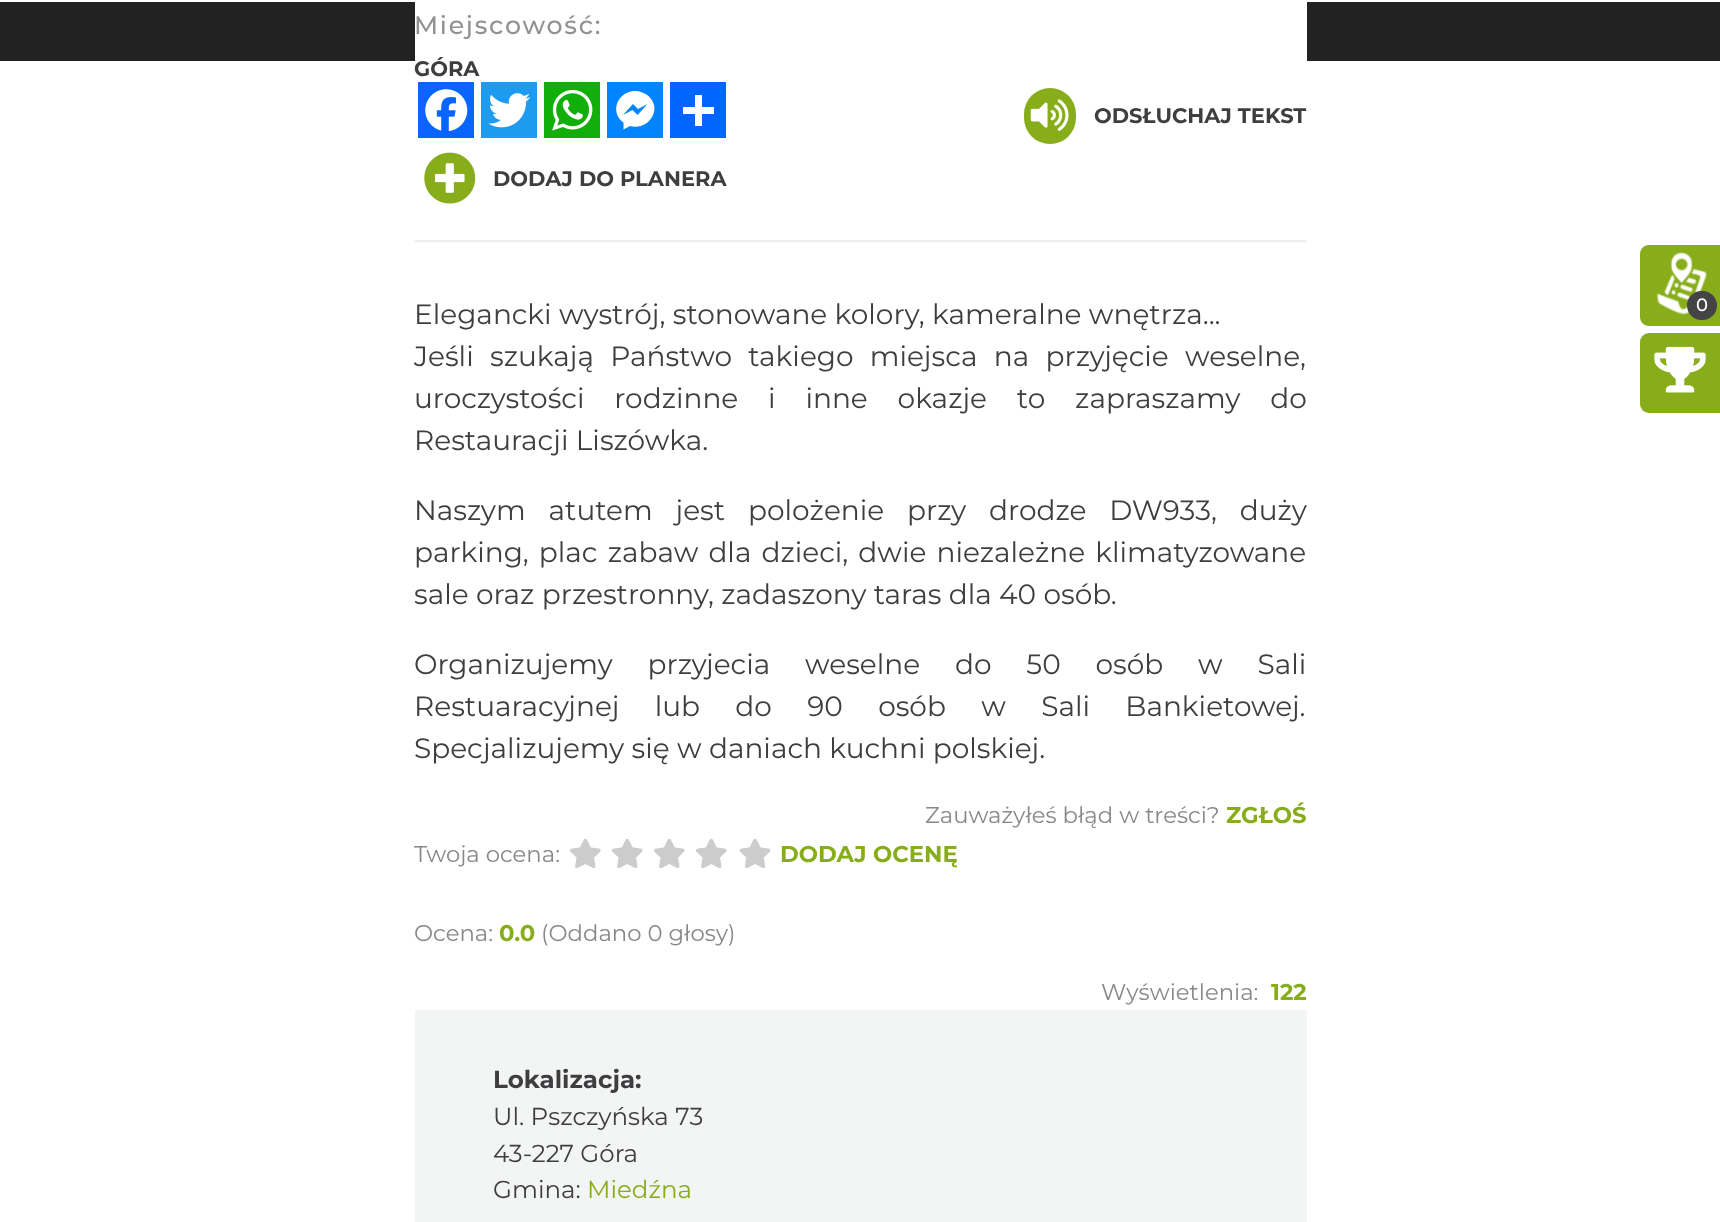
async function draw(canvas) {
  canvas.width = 1720
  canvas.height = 1222
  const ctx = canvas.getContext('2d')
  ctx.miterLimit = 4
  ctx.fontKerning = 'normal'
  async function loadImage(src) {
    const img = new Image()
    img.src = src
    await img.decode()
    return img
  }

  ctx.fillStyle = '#fff'
  ctx.fillRect(0, 0, 1720, 1222)
  ctx.fillStyle = '#222'
  ctx.fillRect(0, 2, 1720, 59)
  ctx.fillStyle = '#fff'
  ctx.fillRect(415, 2, 892, 59)
  ctx.fillStyle = '#efeff0'
  ctx.fillRect(415, 240, 892, 2)
  ctx.letterSpacing = '1.75px'
  ctx.font = '500 25.25px Montserrat'
  ctx.fillStyle = '#929292'
  ctx.fillText('Miejscowość:', 414, 34)
  ctx.letterSpacing = '0px'
  ctx.font = 'bold 21px Montserrat'
  ctx.fillStyle = '#3e3d40'
  ctx.fillText('GÓRA', 414, 76)
  ctx.fillStyle = '#0866ff'
  ctx.fillRect(418, 82, 56, 56)
  ctx.drawImage(await loadImage('image0.png'), 425, 89, 43, 42)
  ctx.fillStyle = '#1d9bf0'
  ctx.fillRect(481, 82, 56, 56)
  ctx.drawImage(await loadImage('image1.png'), 488, 93, 43, 35)
  ctx.fillStyle = '#12af0a'
  ctx.fillRect(544, 82, 56, 56)
  ctx.drawImage(await loadImage('image2.png'), 552, 90, 41, 41)
  ctx.fillStyle = '#0084ff'
  ctx.fillRect(607, 82, 56, 56)
  ctx.fillStyle = '#fff'
  ctx.beginPath()
  ctx.moveTo(635, 91)
  ctx.bezierCurveTo(618, 91, 609, 112, 623.5, 122.5)
  ctx.lineTo(623.5, 129.5)
  ctx.lineTo(630, 126)
  ctx.bezierCurveTo(647.5, 131, 663.5, 110, 648.5, 96)
  ctx.bezierCurveTo(645, 93, 640, 91, 635, 91)
  ctx.moveTo(637.5, 115)
  ctx.lineTo(632.5, 110)
  ctx.lineTo(623, 115)
  ctx.lineTo(633, 104)
  ctx.lineTo(638, 109)
  ctx.lineTo(647.5, 104)
  ctx.closePath()
  ctx.fill()
  ctx.fillStyle = '#0166ff'
  ctx.fillRect(670, 82, 56, 56)
  ctx.fillStyle = '#fff'
  ctx.fillRect(695, 95, 7, 31)
  ctx.fillRect(683, 107, 31, 7)
  ctx.fillStyle = '#88ad1b'
  ctx.beginPath()
  ctx.roundRect(1024, 88, 52, 56, 26)
  ctx.fill()
  ctx.drawImage(await loadImage('image3.png'), 1030, 99, 39, 32)
  ctx.fillStyle = '#3e3d40'
  ctx.fillText('ODSŁUCHAJ TEKST', 1094, 123)
  ctx.drawImage(await loadImage('image4.png'), 424, 152, 52, 52)
  ctx.fillText('DODAJ DO PLANERA', 493, 186)
  ctx.font = '28px Montserrat'
  ctx.fillText('Elegancki wystrój, stonowane kolory, kameralne wnętrza...', 414, 324)
  ctx.wordSpacing = '9px'
  ctx.fillText('Jeśli szukają Państwo takiego miejsca na przyjęcie weselne,', 414, 366)
  ctx.wordSpacing = '22.5px'
  ctx.fillText('uroczystości rodzinne i inne okazje to zapraszamy do', 414, 408)
  ctx.wordSpacing = '0px'
  ctx.fillText('Restauracji Liszówka.', 414, 450)
  ctx.wordSpacing = '15.5px'
  ctx.fillText('Naszym atutem jest polożenie przy drodze DW933, duży', 414, 520)
  ctx.wordSpacing = '2.75px'
  ctx.fillText('parking, plac zabaw dla dzieci, dwie niezależne klimatyzowane', 414, 562)
  ctx.wordSpacing = '0px'
  ctx.fillText('sale oraz przestronny, zadaszony taras dla 40 osób.', 414, 604)
  ctx.wordSpacing = '27.5px'
  ctx.fillText('Organizujemy przyjecia weselne do 50 osób w Sali', 414, 674)
  ctx.wordSpacing = '28px'
  ctx.fillText('Restuaracyjnej lub do 90 osób w Sali Bankietowej.', 414, 716)
  ctx.wordSpacing = '0px'
  ctx.fillText('Specjalizujemy się w daniach kuchni polskiej.', 414, 758)
  ctx.font = '22.75px Montserrat'
  ctx.fillStyle = '#888'
  ctx.fillText('Zauważyłeś błąd w treści?', 925, 823)
  ctx.font = 'bold 22.75px Montserrat'
  ctx.fillStyle = '#88ad1b'
  ctx.fillText('ZGŁOŚ', 1226, 823)
  ctx.font = '22.75px Montserrat'
  ctx.fillStyle = '#888'
  ctx.fillText('Twoja ocena:', 414, 862)
  ctx.drawImage(await loadImage('image5.png'), 570, 838, 31, 31)
  ctx.drawImage(await loadImage('image5.png'), 612, 838, 31, 31)
  ctx.drawImage(await loadImage('image5.png'), 654, 838, 31, 31)
  ctx.drawImage(await loadImage('image5.png'), 696, 838, 31, 31)
  ctx.drawImage(await loadImage('image6.png'), 739, 838, 32, 31)
  ctx.font = 'bold 22.75px Montserrat'
  ctx.fillStyle = '#88ad1b'
  ctx.fillText('DODAJ OCENĘ', 780, 862)
  ctx.font = '22.75px Montserrat'
  ctx.fillStyle = '#888'
  ctx.fillText('Ocena:', 414, 941)
  ctx.font = 'bold 22.75px Montserrat'
  ctx.fillStyle = '#88ad1b'
  ctx.fillText('0.0', 499, 941)
  ctx.font = '22.75px Montserrat'
  ctx.fillStyle = '#888'
  ctx.fillText('(Oddano 0 głosy)', 541, 941)
  ctx.fillText('Wyświetlenia:', 1101, 1000)
  ctx.font = 'bold 22.75px Montserrat'
  ctx.fillStyle = '#88ad1b'
  ctx.fillText('122', 1271, 1000)
  ctx.fillStyle = '#f3f5f5'
  ctx.fillRect(415, 1010, 892, 212)
  ctx.font = 'bold 24.5px Montserrat'
  ctx.fillStyle = '#3e3d40'
  ctx.fillText('Lokalizacja:', 493, 1088)
  ctx.font = '24.5px Montserrat'
  ctx.fillText('Ul. Pszczyńska 73', 493, 1125)
  ctx.fillText('43-227 Góra', 493, 1162)
  ctx.fillText('Gmina:', 493, 1198)
  ctx.fillStyle = '#88ad1b'
  ctx.fillText('Miedźna', 587, 1198)
  ctx.beginPath()
  ctx.moveTo(1649, 245)
  ctx.lineTo(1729, 245)
  ctx.lineTo(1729, 326)
  ctx.lineTo(1649, 326)
  ctx.bezierCurveTo(1644, 326, 1640, 322, 1640, 317)
  ctx.lineTo(1640, 254)
  ctx.bezierCurveTo(1640, 249, 1644, 245, 1649, 245)
  ctx.closePath()
  ctx.fill()
  ctx.drawImage(await loadImage('image7.png'), 1656, 252, 51, 63)
  ctx.fillStyle = '#444'
  ctx.beginPath()
  ctx.roundRect(1687, 291, 30, 29, 14.5)
  ctx.fill()
  ctx.font = '500 18px Montserrat'
  ctx.fillStyle = '#fff'
  ctx.fillText('0', 1696, 311)
  ctx.fillStyle = '#88ad1b'
  ctx.beginPath()
  ctx.roundRect(1640, 333, 80, 80, [9, 0, 0, 9])
  ctx.fill()
  ctx.drawImage(await loadImage('image8.png'), 1654, 346, 52, 47)
}

draw(document.querySelector('canvas'))
